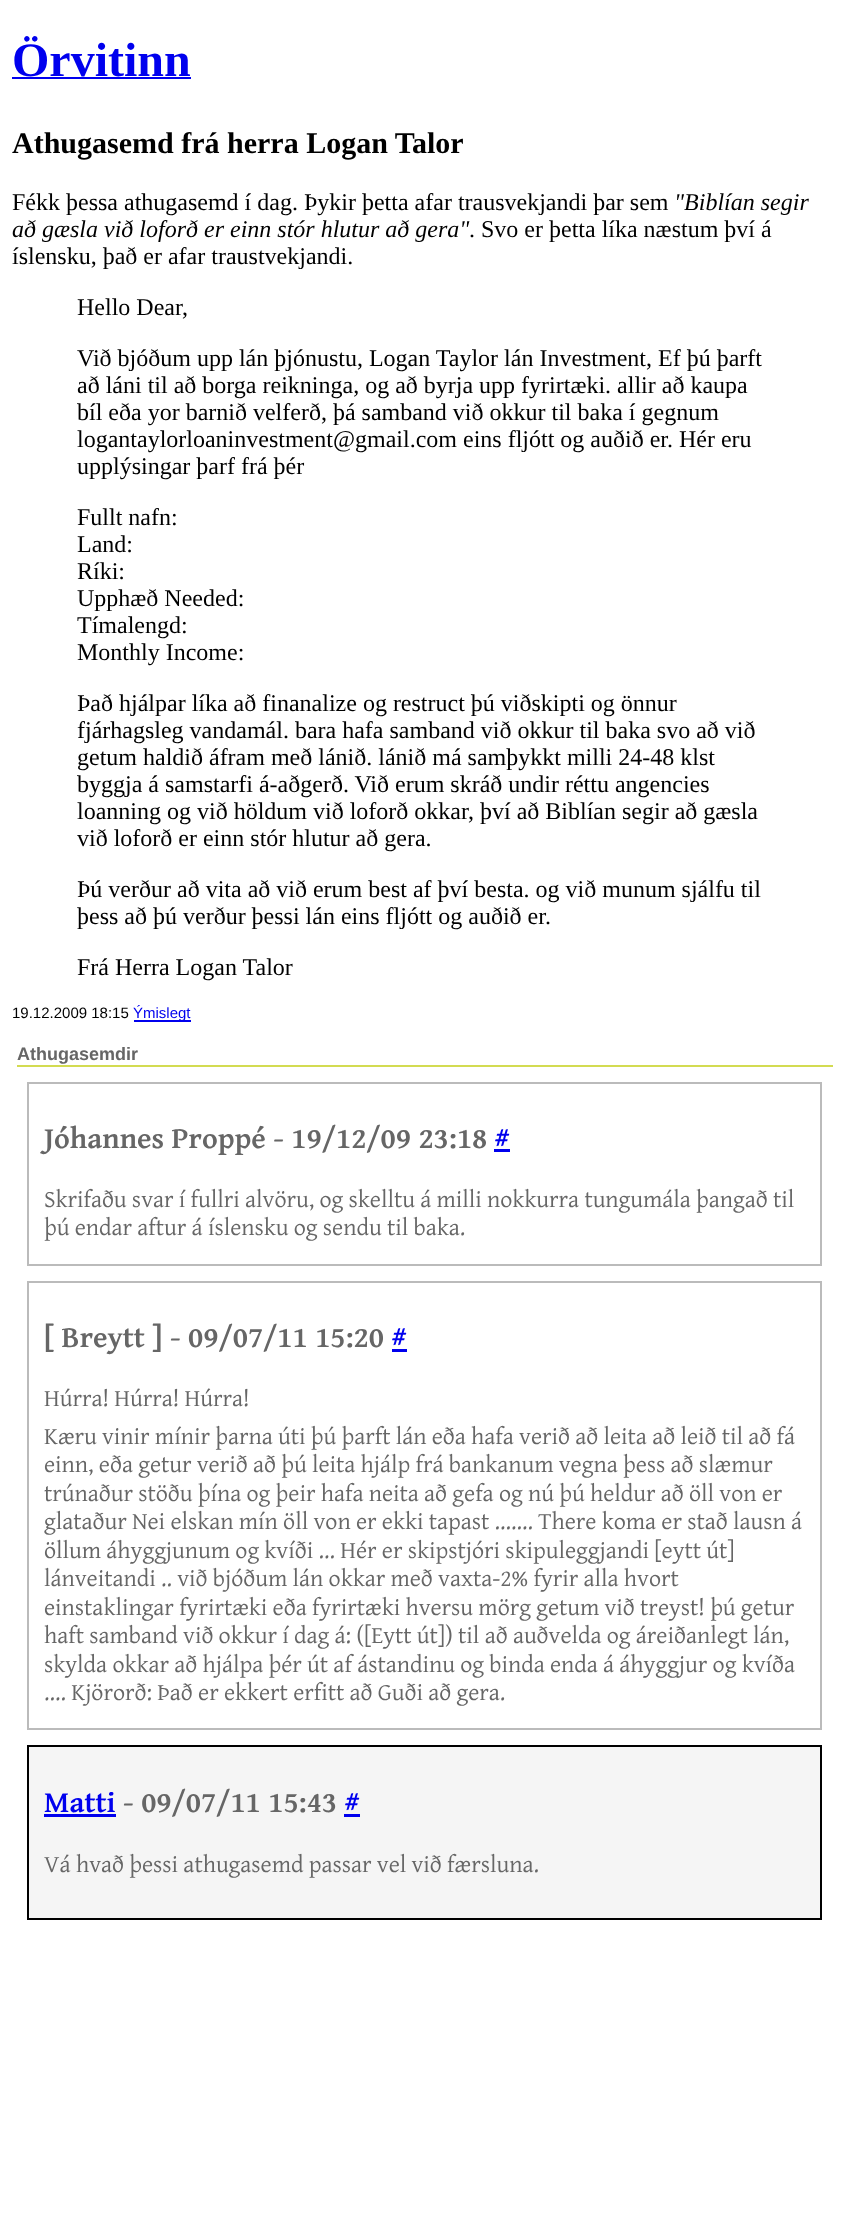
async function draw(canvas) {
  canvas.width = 848
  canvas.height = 2221
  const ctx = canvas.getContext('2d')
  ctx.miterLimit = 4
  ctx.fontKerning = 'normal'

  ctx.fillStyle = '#fff'
  ctx.fillRect(0, 0, 848, 2221)
  ctx.font = 'bold 48px Liberation Serif'
  ctx.fillStyle = '#00e'
  ctx.fillText('Örvitinn', 12, 76)
  ctx.fillRect(12, 77, 179, 2)
  ctx.font = 'bold 30px Liberation Serif'
  ctx.fillStyle = '#000'
  ctx.fillText('Athugasemd frá herra Logan Talor', 12, 153)
  ctx.font = '24px Liberation Serif'
  ctx.fillText('Fékk þessa athugasemd í dag. Þykir þetta afar trausvekjandi þar sem', 12, 210)
  ctx.font = 'italic 24px Liberation Serif'
  ctx.fillText('"Biblían segir', 674, 210)
  ctx.fillText('að gæsla við loforð er einn stór hlutur að gera"', 12, 237)
  ctx.font = '24px Liberation Serif'
  ctx.fillText('. Svo er þetta líka næstum því á', 469, 237)
  ctx.fillText('íslensku, það er afar traustvekjandi.', 12, 264)
  ctx.fillText('Hello Dear,', 77, 315)
  ctx.fillText('Við bjóðum upp lán þjónustu, Logan Taylor lán Investment, Ef þú þarft', 77, 366)
  ctx.fillText('að láni til að borga reikninga, og að byrja upp fyrirtæki. allir að kaupa', 77, 393)
  ctx.fillText('bíl eða yor barnið velferð, þá samband við okkur til baka í gegnum', 77, 420)
  ctx.fillText('logantaylorloaninvestment@gmail.com eins fljótt og auðið er. Hér eru', 77, 447)
  ctx.fillText('upplýsingar þarf frá þér', 77, 474)
  ctx.fillText('Fullt nafn:', 77, 525)
  ctx.fillText('Land:', 77, 552)
  ctx.fillText('Ríki:', 77, 579)
  ctx.fillText('Upphæð Needed:', 77, 606)
  ctx.fillText('Tímalengd:', 77, 633)
  ctx.fillText('Monthly Income:', 77, 660)
  ctx.fillText('Það hjálpar líka að finanalize og restruct þú viðskipti og önnur', 77, 711)
  ctx.fillText('fjárhagsleg vandamál. bara hafa samband við okkur til baka svo að við', 77, 738)
  ctx.fillText('getum haldið áfram með lánið. lánið má samþykkt milli 24-48 klst', 77, 765)
  ctx.fillText('byggja á samstarfi á-aðgerð. Við erum skráð undir réttu angencies', 77, 792)
  ctx.fillText('loanning og við höldum við loforð okkar, því að Biblían segir að gæsla', 77, 819)
  ctx.fillText('við loforð er einn stór hlutur að gera.', 77, 846)
  ctx.fillText('Þú verður að vita að við erum best af því besta. og við munum sjálfu til', 77, 897)
  ctx.fillText('þess að þú verður þessi lán eins fljótt og auðið er.', 77, 924)
  ctx.fillText('Frá Herra Logan Talor', 77, 975)
  ctx.font = '15px Liberation Sans'
  ctx.fillText('19.12.2009 18:15', 12, 1018)
  ctx.fillStyle = '#00e'
  ctx.fillRect(134, 1020, 57, 2)
  ctx.fillText('Ýmislegt', 133, 1018)
  ctx.fillStyle = '#d3db51'
  ctx.fillRect(17, 1065, 816, 2)
  ctx.font = 'bold 18px Liberation Sans'
  ctx.fillStyle = '#666'
  ctx.fillText('Athugasemdir', 17, 1060)
  ctx.strokeStyle = '#bbb'
  ctx.lineWidth = 2
  ctx.strokeRect(28, 1083, 793, 182)
  ctx.font = 'bold 30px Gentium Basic'
  ctx.fillText('Jóhannes Proppé - 19/12/09 23:18', 44, 1148)
  ctx.fillStyle = '#00e'
  ctx.fillText('#', 494, 1148)
  ctx.fillRect(494, 1149, 16, 3)
  ctx.font = '24px Gentium Basic'
  ctx.fillStyle = '#666'
  ctx.fillText('Skrifaðu svar í fullri alvöru, og skelltu á milli nokkurra tungumála þangað til', 44, 1207)
  ctx.fillText('þú endar aftur á íslensku og sendu til baka.', 44, 1235)
  ctx.strokeRect(28, 1282, 793, 447)
  ctx.font = 'bold 30px Gentium Basic'
  ctx.fillText('[ Breytt ] - 09/07/11 15:20', 44, 1347)
  ctx.fillStyle = '#00e'
  ctx.fillText('#', 391, 1347)
  ctx.fillRect(392, 1349, 15, 3)
  ctx.font = '24px Gentium Basic'
  ctx.fillStyle = '#666'
  ctx.fillText('Húrra! Húrra! Húrra!', 44, 1406)
  ctx.fillText('Kæru vinir mínir þarna úti þú þarft lán eða hafa verið að leita að leið til að fá', 44, 1444)
  ctx.fillText('einn, eða getur verið að þú leita hjálp frá bankanum vegna þess að slæmur', 44, 1472)
  ctx.fillText('trúnaður stöðu þína og þeir hafa neita að gefa og nú þú heldur að öll von er', 44, 1501)
  ctx.fillText('glataður Nei elskan mín öll von er ekki tapast ....... There koma er stað lausn á', 44, 1529)
  ctx.fillText('öllum áhyggjunum og kvíði ... Hér er skipstjóri skipuleggjandi [eytt út]', 44, 1558)
  ctx.fillText('lánveitandi .. við bjóðum lán okkar með vaxta-2% fyrir alla hvort', 44, 1586)
  ctx.fillText('einstaklingar fyrirtæki eða fyrirtæki hversu mörg getum við treyst! þú getur', 44, 1615)
  ctx.fillText('haft samband við okkur í dag á: ([Eytt út]) til að auðvelda og áreiðanlegt lán,', 44, 1643)
  ctx.fillText('skylda okkar að hjálpa þér út af ástandinu og binda enda á áhyggjur og kvíða', 44, 1672)
  ctx.fillText('.... Kjörorð: Það er ekkert erfitt að Guði að gera.', 44, 1700)
  ctx.fillStyle = '#f5f5f5'
  ctx.beginPath()
  ctx.rect(28, 1746, 793, 173)
  ctx.fill()
  ctx.strokeStyle = '#000'
  ctx.stroke()
  ctx.font = 'bold 30px Gentium Basic'
  ctx.fillStyle = '#00e'
  ctx.fillText('Matti', 44, 1812)
  ctx.fillRect(44, 1814, 72, 3)
  ctx.fillStyle = '#666'
  ctx.fillText('- 09/07/11 15:43', 123, 1812)
  ctx.fillStyle = '#00e'
  ctx.fillText('#', 344, 1812)
  ctx.fillRect(344, 1814, 16, 3)
  ctx.font = '24px Gentium Basic'
  ctx.fillStyle = '#666'
  ctx.fillText('Vá hvað þessi athugasemd passar vel við færsluna.', 44, 1872)
}

draw(document.querySelector('canvas'))
